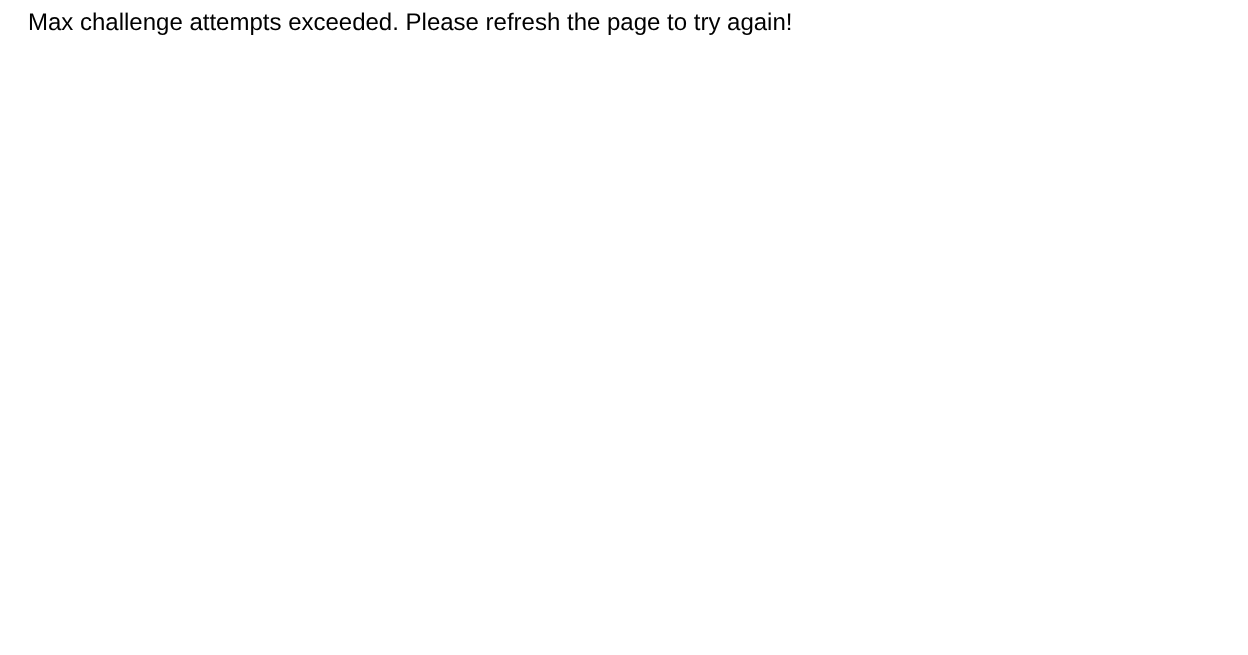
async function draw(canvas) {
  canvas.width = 1248
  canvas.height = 655
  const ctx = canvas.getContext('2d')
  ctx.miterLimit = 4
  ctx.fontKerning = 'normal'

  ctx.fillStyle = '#fff'
  ctx.fillRect(0, 0, 1248, 655)
  ctx.font = '24px Liberation Sans'
  ctx.fillStyle = '#000'
  ctx.fillText('Max challenge attempts exceeded. Please refresh the page to try again!', 28, 30)
}

draw(document.querySelector('canvas'))
